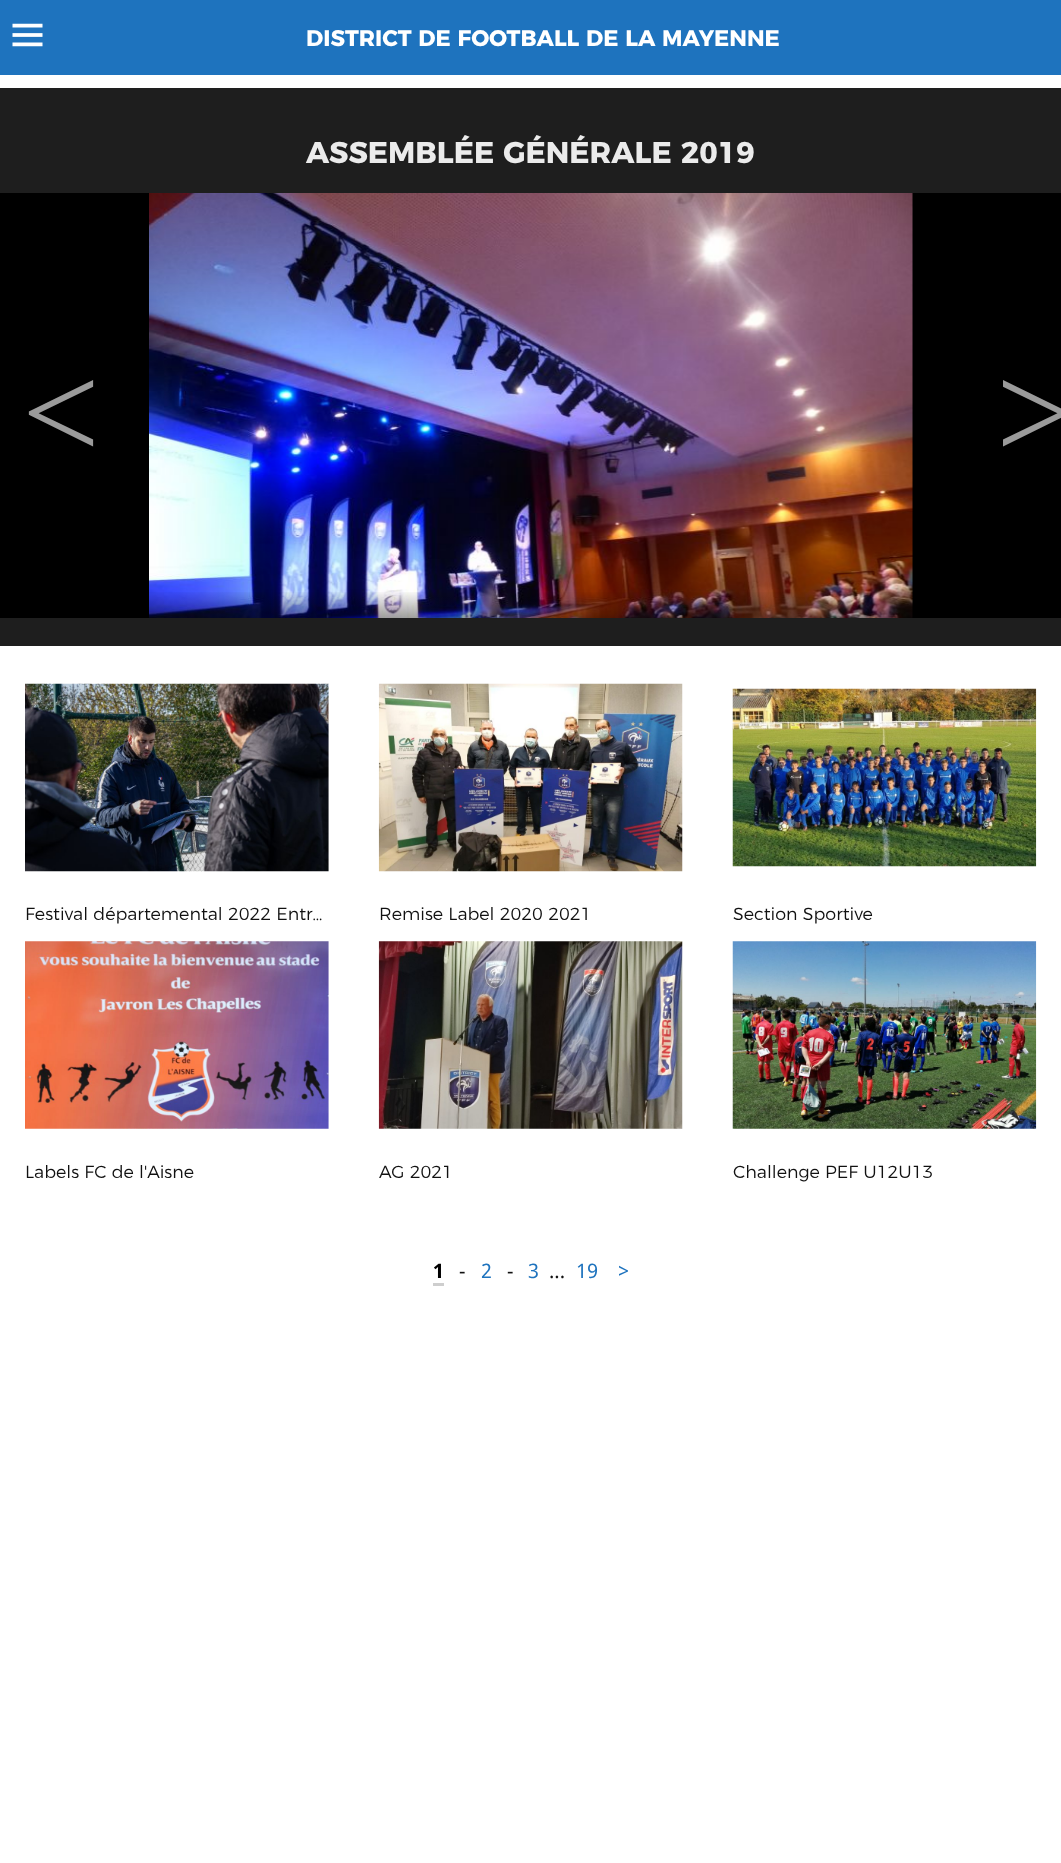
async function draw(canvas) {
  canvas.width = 1061
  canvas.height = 1863
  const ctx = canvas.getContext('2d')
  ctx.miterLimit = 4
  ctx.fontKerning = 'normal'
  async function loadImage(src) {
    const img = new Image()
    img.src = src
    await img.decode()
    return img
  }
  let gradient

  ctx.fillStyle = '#fff'
  ctx.fillRect(0, 0, 1061, 1863)
  ctx.fillStyle = '#1e73be'
  ctx.fillRect(0, 0, 1061, 75)
  ctx.drawImage(await loadImage('image0.png'), 12, 23, 31, 24)
  ctx.font = 'bold 22.5px Montserrat'
  ctx.fillStyle = '#fff'
  ctx.fillText('DISTRICT DE FOOTBALL DE LA MAYENNE', 306, 46)
  ctx.fillStyle = '#1e1e1e'
  ctx.fillRect(0, 88, 1061, 558)
  ctx.font = 'bold 30px Montserrat'
  ctx.fillStyle = '#ebebeb'
  ctx.fillText('ASSEMBLÉE GÉNÉRALE 2019', 306, 163)
  ctx.fillStyle = '#000'
  ctx.fillRect(0, 193, 1061, 425)
  ctx.drawImage(await loadImage('image1.png'), 149, 193, 764, 425)
  gradient = ctx.createLinearGradient(531, 590, 531, 665)
  gradient.addColorStop(0, '#00000000')
  gradient.addColorStop(1, '#000')
  ctx.fillStyle = gradient
  ctx.fillRect(149, 592, 764, 26)
  ctx.letterSpacing = '-39px'
  ctx.font = '138px Liberation Serif'
  ctx.fillStyle = '#9b9b9b'
  ctx.fillText('<', 22, 459)
  ctx.fillText('>', 996, 459)
  ctx.drawImage(await loadImage('image2.png'), 25, 683, 304, 189)
  ctx.letterSpacing = '0px'
  ctx.font = '300 17.5px Montserrat'
  ctx.fillStyle = '#111'
  ctx.fillText('Festival départemental 2022 Entr…', 25, 920)
  ctx.drawImage(await loadImage('image3.png'), 378, 683, 305, 189)
  ctx.fillText('Remise Label 2020 2021', 379, 920)
  ctx.drawImage(await loadImage('image4.png'), 732, 688, 305, 179)
  ctx.fillText('Section Sportive', 733, 920)
  ctx.drawImage(await loadImage('image5.png'), 25, 941, 304, 188)
  ctx.fillText('Labels FC de l\'Aisne', 25, 1178)
  ctx.drawImage(await loadImage('image6.png'), 378, 941, 305, 188)
  ctx.fillText('AG 2021', 379, 1178)
  ctx.drawImage(await loadImage('image7.png'), 732, 941, 305, 188)
  ctx.fillText('Challenge PEF U12U13', 733, 1178)
  ctx.font = 'bold 20px Droid Sans'
  ctx.fillStyle = '#000'
  ctx.fillText('1', 433, 1278)
  ctx.fillStyle = '#cecece'
  ctx.fillRect(433, 1283, 11, 3)
  ctx.font = '20px Droid Sans'
  ctx.fillStyle = '#111'
  ctx.fillText('-', 459, 1278)
  ctx.fillStyle = '#1e73be'
  ctx.fillText('2', 481, 1278)
  ctx.fillStyle = '#111'
  ctx.fillText('-', 507, 1278)
  ctx.fillStyle = '#1e73be'
  ctx.fillText('3', 528, 1278)
  ctx.fillText('19', 576, 1278)
  ctx.fillText('>', 618, 1278)
  ctx.fillStyle = '#111'
  ctx.fillText('...', 549, 1278)
}

draw(document.querySelector('canvas'))
